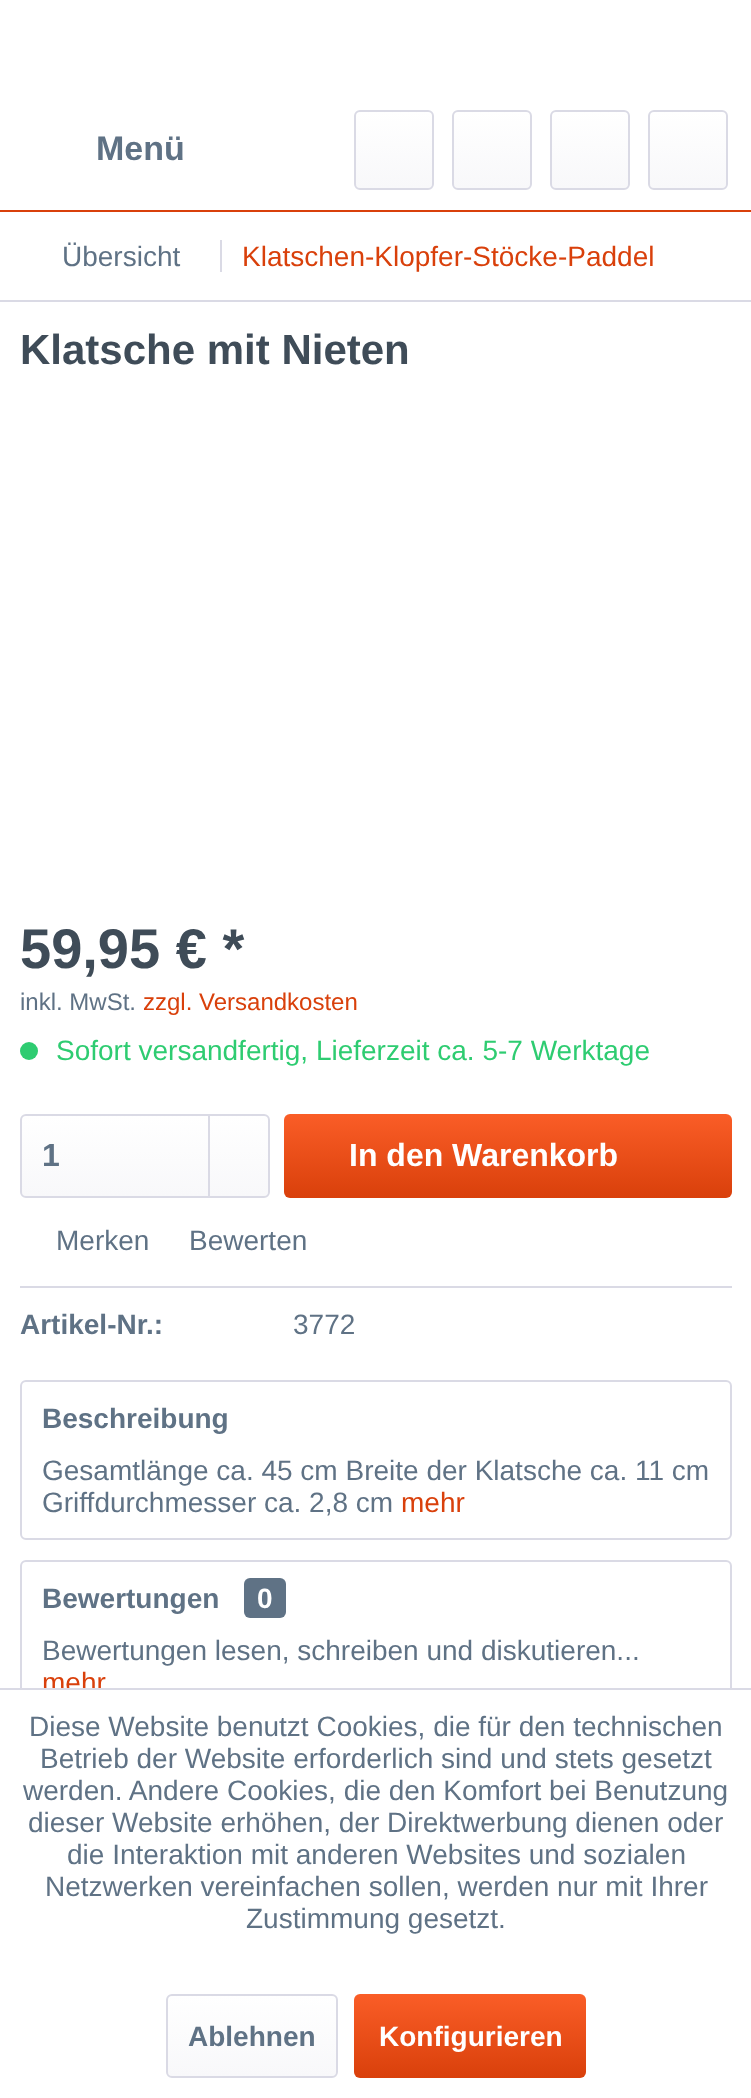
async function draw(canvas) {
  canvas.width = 751
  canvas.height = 2098
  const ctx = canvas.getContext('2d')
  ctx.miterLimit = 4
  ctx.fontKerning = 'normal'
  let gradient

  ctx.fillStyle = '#fff'
  ctx.fillRect(0, 0, 751, 2098)
  ctx.fillStyle = '#d9400b'
  ctx.fillRect(0, 210, 751, 2)
  ctx.font = 'bold 34px Liberation Sans'
  ctx.fillStyle = '#5f7285'
  ctx.fillText('Menü', 96, 160)
  gradient = ctx.createLinearGradient(394, 112, 394, 188)
  gradient.addColorStop(0, '#fff')
  gradient.addColorStop(1, '#f8f8fa')
  ctx.fillStyle = gradient
  ctx.beginPath()
  ctx.roundRect(356, 112, 76, 76, 4)
  ctx.fill()
  ctx.beginPath()
  ctx.roundRect(355, 111, 78, 78, 5)
  ctx.strokeStyle = '#dadae5'
  ctx.lineWidth = 2
  ctx.stroke()
  gradient = ctx.createLinearGradient(492, 112, 492, 188)
  gradient.addColorStop(0, '#fff')
  gradient.addColorStop(1, '#f8f8fa')
  ctx.fillStyle = gradient
  ctx.beginPath()
  ctx.roundRect(454, 112, 76, 76, 4)
  ctx.fill()
  ctx.beginPath()
  ctx.roundRect(453, 111, 78, 78, 5)
  ctx.stroke()
  gradient = ctx.createLinearGradient(590, 112, 590, 188)
  gradient.addColorStop(0, '#fff')
  gradient.addColorStop(1, '#f8f8fa')
  ctx.fillStyle = gradient
  ctx.beginPath()
  ctx.roundRect(552, 112, 76, 76, 4)
  ctx.fill()
  ctx.beginPath()
  ctx.roundRect(551, 111, 78, 78, 5)
  ctx.stroke()
  gradient = ctx.createLinearGradient(688, 112, 688, 188)
  gradient.addColorStop(0, '#fff')
  gradient.addColorStop(1, '#f8f8fa')
  ctx.fillStyle = gradient
  ctx.beginPath()
  ctx.roundRect(650, 112, 76, 76, 4)
  ctx.fill()
  ctx.beginPath()
  ctx.roundRect(649, 111, 78, 78, 5)
  ctx.stroke()
  ctx.fillStyle = '#dadae5'
  ctx.fillRect(0, 300, 751, 2)
  ctx.font = '28px Liberation Sans'
  ctx.fillStyle = '#5f7285'
  ctx.fillText('Übersicht', 62, 266)
  ctx.fillStyle = '#dadae5'
  ctx.fillRect(220, 240, 2, 32)
  ctx.fillStyle = '#d9400b'
  ctx.fillText('Klatschen-Klopfer-Stöcke-Paddel', 242, 266)
  ctx.font = 'bold 42px Liberation Sans'
  ctx.fillStyle = '#3f4c58'
  ctx.fillText('Klatsche mit Nieten', 20, 364)
  ctx.font = 'bold 56px Liberation Sans'
  ctx.fillText('59,95 € *', 20, 968)
  ctx.font = '24px Liberation Sans'
  ctx.fillStyle = '#5f7285'
  ctx.fillText('inkl. MwSt.', 20, 1010)
  ctx.fillStyle = '#d9400b'
  ctx.fillText('zzgl. Versandkosten', 143, 1010)
  ctx.fillStyle = '#2ecc71'
  ctx.beginPath()
  ctx.arc(29, 1051, 9, 0, 2 * Math.PI)
  ctx.fill()
  ctx.font = '28px Liberation Sans'
  ctx.fillText('Sofort versandfertig, Lieferzeit ca. 5-7 Werktage', 56, 1060)
  gradient = ctx.createLinearGradient(145, 1116, 145, 1196)
  gradient.addColorStop(0, '#fff')
  gradient.addColorStop(1, '#f8f8fa')
  ctx.fillStyle = gradient
  ctx.beginPath()
  ctx.roundRect(22, 1116, 246, 80, 4)
  ctx.fill()
  ctx.beginPath()
  ctx.roundRect(21, 1115, 248, 82, 5)
  ctx.stroke()
  ctx.font = 'bold 32px Liberation Sans'
  ctx.fillStyle = '#5f7285'
  ctx.fillText('1', 42, 1166)
  ctx.fillStyle = '#dadae5'
  ctx.fillRect(208, 1116, 2, 80)
  gradient = ctx.createLinearGradient(508, 1114, 508, 1198)
  gradient.addColorStop(0, '#fa5d27')
  gradient.addColorStop(1, '#d9400b')
  ctx.fillStyle = gradient
  ctx.beginPath()
  ctx.roundRect(284, 1114, 448, 84, 6)
  ctx.fill()
  ctx.fillStyle = '#fff'
  ctx.fillText('In den Warenkorb', 349, 1166)
  ctx.fillStyle = '#dadae5'
  ctx.fillRect(20, 1286, 712, 2)
  ctx.font = '28px Liberation Sans'
  ctx.fillStyle = '#5f7285'
  ctx.fillText('Merken', 56, 1250)
  ctx.fillText('Bewerten', 189, 1250)
  ctx.font = 'bold 28px Liberation Sans'
  ctx.fillText('Artikel-Nr.:', 20, 1334)
  ctx.font = '28px Liberation Sans'
  ctx.fillText('3772', 293, 1334)
  ctx.beginPath()
  ctx.roundRect(21, 1381, 710, 158, 5)
  ctx.stroke()
  ctx.font = 'bold 28px Liberation Sans'
  ctx.fillText('Beschreibung', 42, 1428)
  ctx.font = '28px Liberation Sans'
  ctx.fillText('Gesamtlänge ca. 45 cm Breite der Klatsche ca. 11 cm', 42, 1480)
  ctx.fillText('Griffdurchmesser ca. 2,8 cm', 42, 1512)
  ctx.fillStyle = '#d9400b'
  ctx.fillText('mehr', 401, 1512)
  ctx.beginPath()
  ctx.roundRect(21, 1561, 710, 158, 5)
  ctx.stroke()
  ctx.font = 'bold 28px Liberation Sans'
  ctx.fillStyle = '#5f7285'
  ctx.fillText('Bewertungen', 42, 1608)
  ctx.beginPath()
  ctx.roundRect(244, 1578, 42, 40, 6)
  ctx.fill()
  ctx.fillStyle = '#fff'
  ctx.fillText('0', 257, 1608)
  ctx.font = '28px Liberation Sans'
  ctx.fillStyle = '#5f7285'
  ctx.fillText('Bewertungen lesen, schreiben und diskutieren...', 42, 1660)
  ctx.fillStyle = '#d9400b'
  ctx.fillText('mehr', 42, 1692)
  ctx.fillStyle = '#fff'
  ctx.fillRect(20, 1690, 712, 30)
  ctx.fillStyle = '#dadae5'
  ctx.fillRect(0, 1688, 751, 2)
  ctx.fillStyle = '#5f7285'
  ctx.fillText('Diese Website benutzt Cookies, die für den technischen', 29, 1736)
  ctx.fillText('Betrieb der Website erforderlich sind und stets gesetzt', 40, 1768)
  ctx.fillText('werden. Andere Cookies, die den Komfort bei Benutzung', 23, 1800)
  ctx.fillText('dieser Website erhöhen, der Direktwerbung dienen oder', 28, 1832)
  ctx.fillText('die Interaktion mit anderen Websites und sozialen', 67, 1864)
  ctx.fillText('Netzwerken vereinfachen sollen, werden nur mit Ihrer', 45, 1896)
  ctx.fillText('Zustimmung gesetzt.', 246, 1928)
  gradient = ctx.createLinearGradient(252, 1996, 252, 2076)
  gradient.addColorStop(0, '#fff')
  gradient.addColorStop(1, '#f8f8fa')
  ctx.fillStyle = gradient
  ctx.beginPath()
  ctx.roundRect(168, 1996, 168, 80, 4)
  ctx.fill()
  ctx.beginPath()
  ctx.roundRect(167, 1995, 170, 82, 5)
  ctx.stroke()
  ctx.font = 'bold 28px Liberation Sans'
  ctx.fillStyle = '#5f7285'
  ctx.fillText('Ablehnen', 188, 2046)
  gradient = ctx.createLinearGradient(470, 1994, 470, 2078)
  gradient.addColorStop(0, '#fa5d27')
  gradient.addColorStop(1, '#d9400b')
  ctx.fillStyle = gradient
  ctx.beginPath()
  ctx.roundRect(354, 1994, 232, 84, 6)
  ctx.fill()
  ctx.fillStyle = '#fff'
  ctx.fillText('Konfigurieren', 379, 2046)
}

draw(document.querySelector('canvas'))
